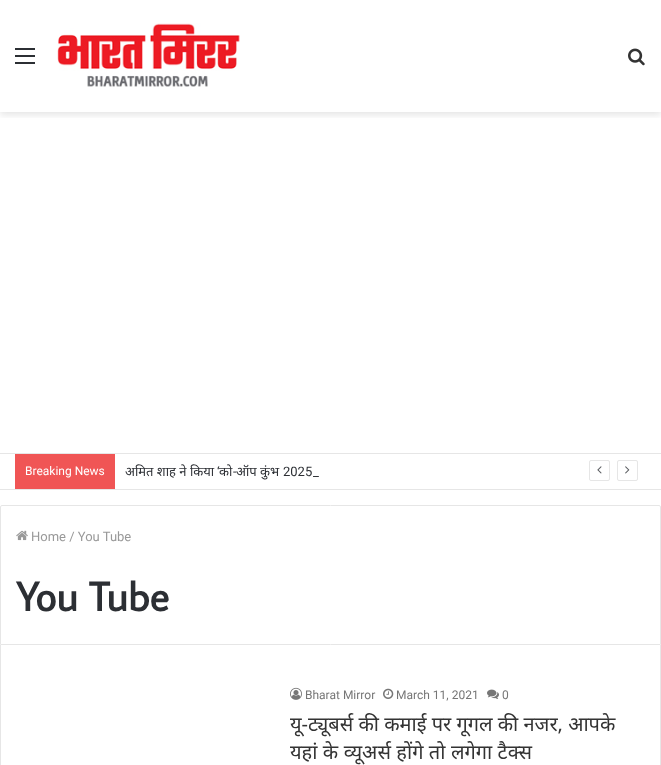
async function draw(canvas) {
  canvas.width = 661
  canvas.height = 765
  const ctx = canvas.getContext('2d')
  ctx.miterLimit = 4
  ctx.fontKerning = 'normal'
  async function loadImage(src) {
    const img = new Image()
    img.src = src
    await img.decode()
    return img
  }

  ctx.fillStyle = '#fff'
  ctx.fillRect(0, 0, 661, 765)
  ctx.save()
  ctx.beginPath()
  ctx.rect(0, 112, 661, 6)
  ctx.clip()
  ctx.fillStyle = '#0000001a'
  ctx.filter = 'blur(3.5px)'
  ctx.beginPath()
  ctx.rect(0, 3, 661, 112)
  ctx.fill()
  ctx.filter = 'none'
  ctx.restore()
  ctx.fillStyle = '#2c2f34'
  ctx.fillRect(15, 55, 20, 2)
  ctx.fillRect(15, 48, 20, 2)
  ctx.fillRect(15, 62, 20, 2)
  ctx.drawImage(await loadImage('image0.png'), 57, 23, 183, 64)
  ctx.drawImage(await loadImage('image1.png'), 628, 48, 17, 18)
  ctx.fillStyle = '#e6e6e6'
  ctx.fillRect(0, 453, 661, 1)
  ctx.fillRect(0, 489, 661, 1)
  ctx.fillStyle = '#f05555'
  ctx.fillRect(15, 454, 100, 35)
  ctx.font = '12px Roboto'
  ctx.fillStyle = '#fff'
  ctx.fillText('Breaking News', 25, 475)
  ctx.font = '13px Noto Sans'
  ctx.fillStyle = '#2c2f34'
  ctx.fillText('अमित शाह ने किया', 125, 476)
  ctx.font = '13px Roboto'
  ctx.fillText('‘', 217, 476)
  ctx.font = '13px Noto Sans'
  ctx.fillText('को', 219, 476)
  ctx.font = '13px Roboto'
  ctx.fillText('-', 233, 476)
  ctx.font = '13px Noto Sans'
  ctx.fillText('ऑप कुंभ', 236, 476)
  ctx.font = '13px Roboto'
  ctx.fillText('2025', 283, 476)
  ctx.fillText('_', 313, 476)
  ctx.beginPath()
  ctx.roundRect(589.5, 460.5, 20, 20, 1.5)
  ctx.strokeStyle = '#e6e6e6'
  ctx.stroke()
  ctx.drawImage(await loadImage('image2.png'), 597, 466, 5, 8)
  ctx.beginPath()
  ctx.roundRect(617.5, 460.5, 20, 20, 1.5)
  ctx.stroke()
  ctx.drawImage(await loadImage('image3.png'), 625, 466, 5, 8)
  ctx.beginPath()
  ctx.roundRect(0.5, 505.5, 660, 139, [1.5, 1.5, 0, 0])
  ctx.stroke()
  ctx.drawImage(await loadImage('image4.png'), 16, 530, 12, 11)
  ctx.fillStyle = '#999'
  ctx.fillText('Home / You Tube', 31, 541)
  ctx.font = 'bold 41px Average Sans'
  ctx.fillStyle = '#2c2f34'
  ctx.fillText('You Tube', 16, 611)
  ctx.fillStyle = '#e6e6e6'
  ctx.fillRect(660, 645, 1, 120)
  ctx.fillRect(0, 645, 1, 120)
  ctx.drawImage(await loadImage('image5.png'), 290, 687, 12, 13)
  ctx.font = '12px Roboto'
  ctx.fillStyle = '#767676'
  ctx.fillText('Bharat Mirror', 305, 699)
  ctx.drawImage(await loadImage('image6.png'), 383, 688, 11, 11)
  ctx.fillText('March 11, 2021', 396, 699)
  ctx.drawImage(await loadImage('image7.png'), 487, 689, 12, 10)
  ctx.fillText('0', 502, 699)
  ctx.font = '20px Noto Sans'
  ctx.fillStyle = '#333'
  ctx.fillText('यू-ट्यूबर्स की कमाई पर गूगल की नजर, आपके', 290, 731)
  ctx.wordSpacing = '0.25px'
  ctx.fillText('यहां के व्यूअर्स होंगे तो लगेगा टैक्स', 290, 759)
}

draw(document.querySelector('canvas'))
